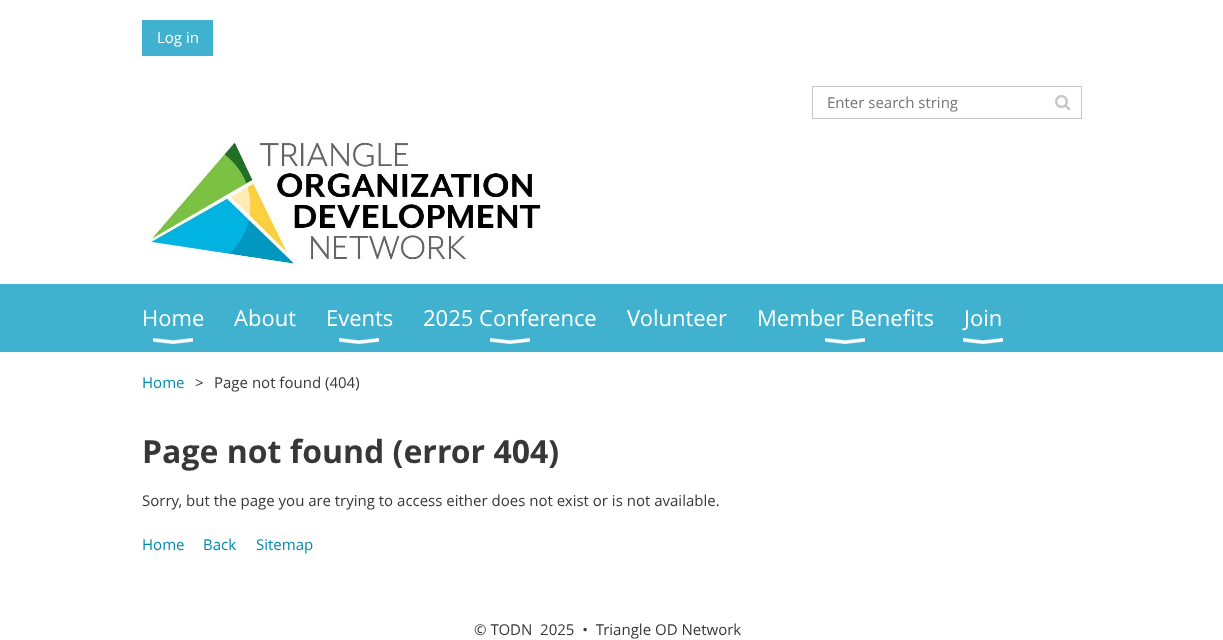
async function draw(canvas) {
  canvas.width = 1223
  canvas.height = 640
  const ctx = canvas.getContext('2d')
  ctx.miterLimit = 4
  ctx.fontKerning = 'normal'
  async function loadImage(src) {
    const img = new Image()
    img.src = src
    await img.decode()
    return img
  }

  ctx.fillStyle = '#fff'
  ctx.fillRect(0, 0, 1223, 640)
  ctx.fillStyle = '#40b2cf'
  ctx.fillRect(142, 20, 71, 36)
  ctx.font = '15px Open Sans'
  ctx.fillStyle = '#fff'
  ctx.fillText('Log in', 157, 43)
  ctx.strokeStyle = '#c6c6c6'
  ctx.strokeRect(812.5, 86.5, 269, 32)
  ctx.fillStyle = '#757575'
  ctx.fillText('Enter search string', 827, 108)
  ctx.drawImage(await loadImage('image0.png'), 1055, 95, 16, 16)
  ctx.drawImage(await loadImage('image1.png'), 150, 137, 391, 131)
  ctx.fillStyle = '#40b2cf'
  ctx.fillRect(0, 284, 1223, 68)
  ctx.font = '22px Open Sans'
  ctx.fillStyle = '#fff'
  ctx.fillText('Home', 142, 326)
  ctx.drawImage(await loadImage('image2.png'), 153, 338, 40, 6)
  ctx.fillText('About', 234, 326)
  ctx.fillText('Events', 326, 326)
  ctx.drawImage(await loadImage('image2.png'), 339, 338, 40, 6)
  ctx.fillText('2025 Conference', 423, 326)
  ctx.drawImage(await loadImage('image2.png'), 490, 338, 40, 6)
  ctx.fillText('Volunteer', 627, 326)
  ctx.fillText('Member Benefits', 757, 326)
  ctx.drawImage(await loadImage('image2.png'), 825, 338, 40, 6)
  ctx.fillText('Join', 964, 326)
  ctx.drawImage(await loadImage('image2.png'), 963, 338, 40, 6)
  ctx.font = '15px Open Sans'
  ctx.fillStyle = '#008bae'
  ctx.fillText('Home', 142, 388)
  ctx.fillStyle = '#373737'
  ctx.fillText('>', 195, 388)
  ctx.fillText('Page not found (404)', 214, 388)
  ctx.font = 'bold 32px Open Sans'
  ctx.fillText('Page not found (error 404)', 142, 463)
  ctx.font = '15px Open Sans'
  ctx.fillText('Sorry, but the page you are trying to access either does not exist or is not available.', 142, 506)
  ctx.fillStyle = '#008bae'
  ctx.fillText('Home', 142, 550)
  ctx.fillText('Back', 203, 550)
  ctx.fillText('Sitemap', 256, 550)
  ctx.fillStyle = '#373737'
  ctx.fillText('© TODN  2025  •  Triangle OD Network', 474, 635)
}

draw(document.querySelector('canvas'))
